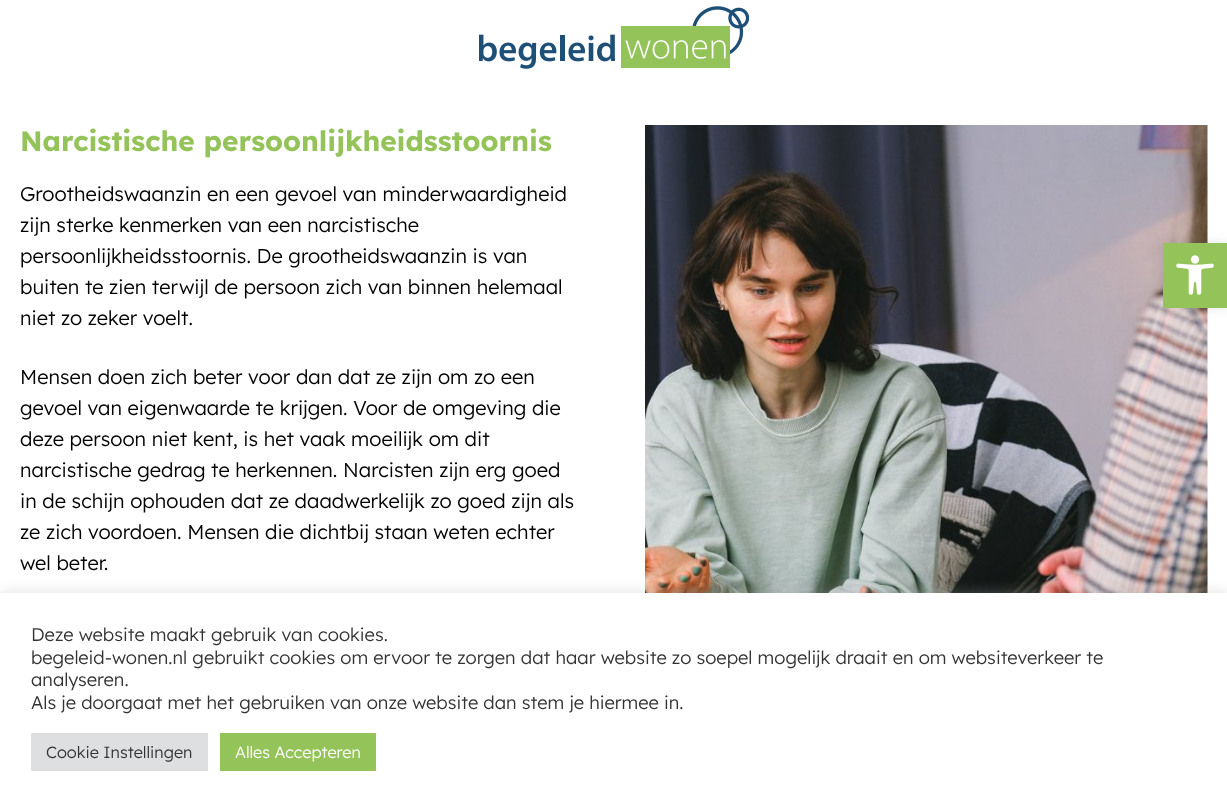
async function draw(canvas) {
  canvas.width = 1227
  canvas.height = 808
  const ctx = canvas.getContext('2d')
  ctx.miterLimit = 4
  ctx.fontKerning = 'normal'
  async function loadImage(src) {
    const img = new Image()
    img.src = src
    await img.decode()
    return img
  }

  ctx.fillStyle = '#fff'
  ctx.fillRect(0, 0, 1227, 808)
  ctx.drawImage(await loadImage('image0.png'), 479, 6, 270, 63)
  ctx.font = 'bold 28px Lexend Deca'
  ctx.fillStyle = '#94c35a'
  ctx.fillText('Narcistische persoonlijkheidsstoornis', 20, 151)
  ctx.font = '300 20px Lexend Deca'
  ctx.fillStyle = '#000'
  ctx.fillText('Grootheidswaanzin en een gevoel van minderwaardigheid', 20, 201)
  ctx.fillText('zijn sterke kenmerken van een narcistische', 20, 232)
  ctx.fillText('persoonlijkheidsstoornis. De grootheidswaanzin is van', 20, 263)
  ctx.fillText('buiten te zien terwijl de persoon zich van binnen helemaal', 20, 294)
  ctx.fillText('niet zo zeker voelt.', 20, 325)
  ctx.fillText('Mensen doen zich beter voor dan dat ze zijn om zo een', 20, 384)
  ctx.fillText('gevoel van eigenwaarde te krijgen. Voor de omgeving die', 20, 415)
  ctx.fillText('deze persoon niet kent, is het vaak moeilijk om dit', 20, 446)
  ctx.fillText('narcistische gedrag te herkennen. Narcisten zijn erg goed', 20, 477)
  ctx.fillText('in de schijn ophouden dat ze daadwerkelijk zo goed zijn als', 20, 508)
  ctx.fillText('ze zich voordoen. Mensen die dichtbij staan weten echter', 20, 539)
  ctx.fillText('wel beter.', 20, 570)
  ctx.drawImage(await loadImage('image1.png'), 645, 125, 563, 468)
  ctx.fillStyle = '#0000001a'
  ctx.filter = 'blur(6px)'
  ctx.beginPath()
  ctx.rect(1163, 243, 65, 65)
  ctx.fill()
  ctx.filter = 'none'
  ctx.fillStyle = '#94c35a'
  ctx.fillRect(1163, 243, 64, 65)
  ctx.drawImage(await loadImage('image2.png'), 1176, 255, 38, 40)
  ctx.fillStyle = '#acabab4d'
  ctx.filter = 'blur(6px)'
  ctx.beginPath()
  ctx.rect(0, 591, 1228, 217)
  ctx.fill()
  ctx.filter = 'none'
  ctx.fillStyle = '#fff'
  ctx.fillRect(0, 593, 1227, 215)
  ctx.font = '300 18.33px Lexend Deca'
  ctx.fillStyle = '#333'
  ctx.fillText('Deze website maakt gebruik van cookies.', 31, 641)
  ctx.fillText('begeleid-wonen.nl gebruikt cookies om ervoor te zorgen dat haar website zo soepel mogelijk draait en om websiteverkeer te', 31, 664)
  ctx.fillText('analyseren.', 31, 686)
  ctx.fillText('Als je doorgaat met het gebruiken van onze website dan stem je hiermee in.', 31, 709)
  ctx.fillStyle = '#dedfe0'
  ctx.fillRect(31, 733, 177, 38)
  ctx.font = '300 16.25px Lexend Deca'
  ctx.fillStyle = '#333'
  ctx.fillText('Cookie Instellingen', 46, 758)
  ctx.fillStyle = '#94c35a'
  ctx.fillRect(220, 733, 156, 38)
  ctx.fillStyle = '#fff'
  ctx.fillText('Alles Accepteren', 235, 758)
}

draw(document.querySelector('canvas'))
